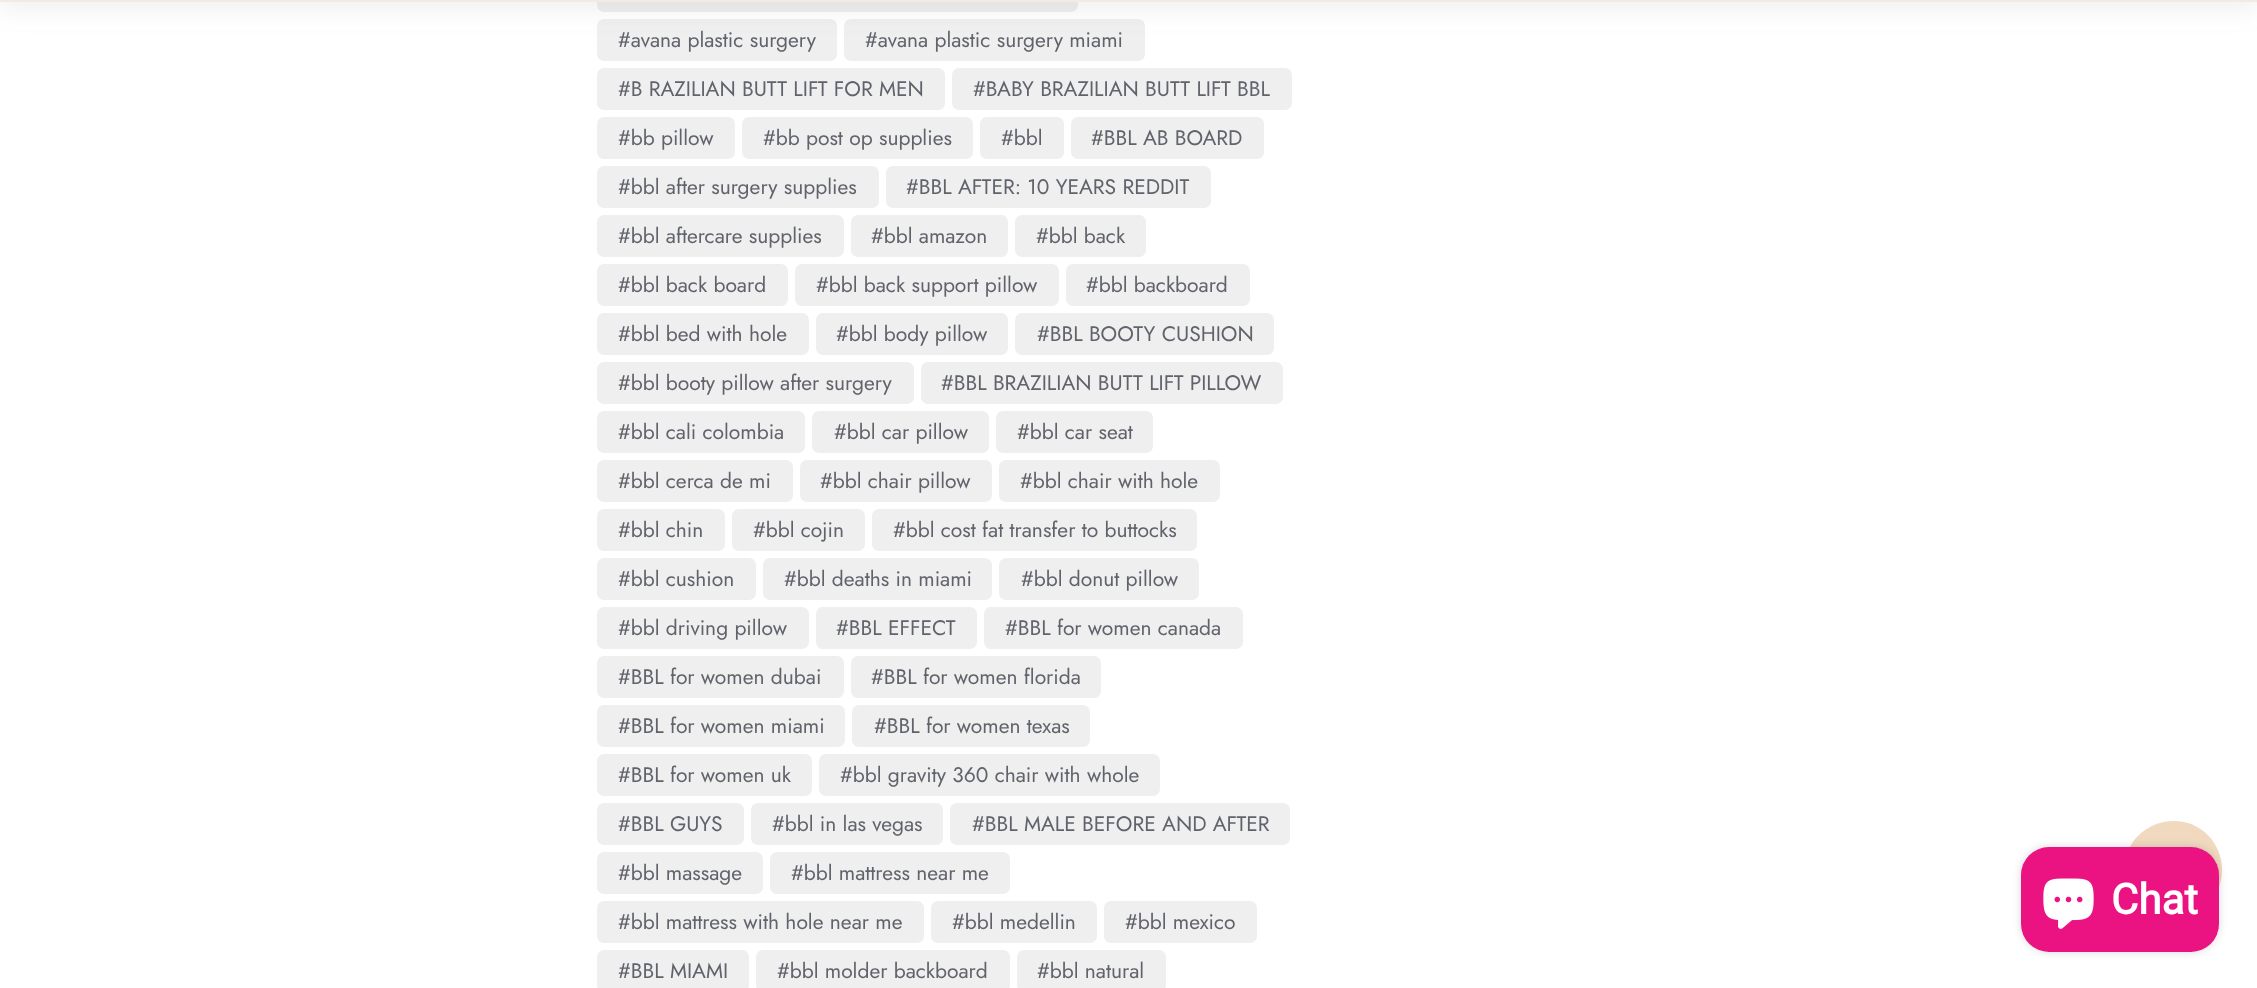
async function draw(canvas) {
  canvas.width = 2257
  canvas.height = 988
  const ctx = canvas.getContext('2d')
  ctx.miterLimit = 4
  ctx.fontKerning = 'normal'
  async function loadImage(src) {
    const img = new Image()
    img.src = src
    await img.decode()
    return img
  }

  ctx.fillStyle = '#fff'
  ctx.fillRect(0, 0, 2257, 988)
  ctx.fillStyle = '#efeff0'
  ctx.beginPath()
  ctx.roundRect(597, -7, 481, 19, 7)
  ctx.fill()
  ctx.beginPath()
  ctx.roundRect(597, 19, 240, 42, 7)
  ctx.fill()
  ctx.beginPath()
  ctx.roundRect(844, 19, 301, 42, 7)
  ctx.fill()
  ctx.fillStyle = '#61636b1a'
  ctx.filter = 'blur(13px)'
  ctx.beginPath()
  ctx.rect(0, -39, 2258, 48)
  ctx.fill()
  ctx.filter = 'none'
  ctx.fillStyle = '#f3eae1'
  ctx.fillRect(0, 0, 2257, 2)
  ctx.font = '21px Jost'
  ctx.fillStyle = '#61636b'
  ctx.fillText('#avana plastic surgery', 618, 47)
  ctx.fillText('#avana plastic surgery miami', 865, 47)
  ctx.fillStyle = '#efeff0'
  ctx.beginPath()
  ctx.roundRect(597, 68, 348, 42, 7)
  ctx.fill()
  ctx.fillStyle = '#61636b'
  ctx.fillText('#B RAZILIAN BUTT LIFT FOR MEN', 618, 96)
  ctx.fillStyle = '#efeff0'
  ctx.beginPath()
  ctx.roundRect(952, 68, 340, 42, 7)
  ctx.fill()
  ctx.fillStyle = '#61636b'
  ctx.fillText('#BABY BRAZILIAN BUTT LIFT BBL', 973, 96)
  ctx.fillStyle = '#efeff0'
  ctx.beginPath()
  ctx.roundRect(597, 117, 138, 42, 7)
  ctx.fill()
  ctx.fillStyle = '#61636b'
  ctx.fillText('#bb pillow', 618, 145)
  ctx.fillStyle = '#efeff0'
  ctx.beginPath()
  ctx.roundRect(742, 117, 231, 42, 7)
  ctx.fill()
  ctx.fillStyle = '#61636b'
  ctx.fillText('#bb post op supplies', 763, 145)
  ctx.fillStyle = '#efeff0'
  ctx.beginPath()
  ctx.roundRect(980, 117, 84, 42, 7)
  ctx.fill()
  ctx.fillStyle = '#61636b'
  ctx.fillText('#bbl', 1001, 145)
  ctx.fillStyle = '#efeff0'
  ctx.beginPath()
  ctx.roundRect(1071, 117, 193, 42, 7)
  ctx.fill()
  ctx.fillStyle = '#61636b'
  ctx.fillText('#BBL AB BOARD', 1091, 145)
  ctx.fillStyle = '#efeff0'
  ctx.beginPath()
  ctx.roundRect(597, 166, 282, 42, 7)
  ctx.fill()
  ctx.fillStyle = '#61636b'
  ctx.fillText('#bbl after surgery supplies', 618, 194)
  ctx.fillStyle = '#efeff0'
  ctx.beginPath()
  ctx.roundRect(886, 166, 325, 42, 7)
  ctx.fill()
  ctx.fillStyle = '#61636b'
  ctx.fillText('#BBL AFTER: 10 YEARS REDDIT', 906, 194)
  ctx.fillStyle = '#efeff0'
  ctx.beginPath()
  ctx.roundRect(597, 215, 247, 42, 7)
  ctx.fill()
  ctx.fillStyle = '#61636b'
  ctx.fillText('#bbl aftercare supplies', 618, 243)
  ctx.fillStyle = '#efeff0'
  ctx.beginPath()
  ctx.roundRect(851, 215, 157, 42, 7)
  ctx.fill()
  ctx.fillStyle = '#61636b'
  ctx.fillText('#bbl amazon', 871, 243)
  ctx.fillStyle = '#efeff0'
  ctx.beginPath()
  ctx.roundRect(1015, 215, 131, 42, 7)
  ctx.fill()
  ctx.fillStyle = '#61636b'
  ctx.fillText('#bbl back', 1036, 243)
  ctx.fillStyle = '#efeff0'
  ctx.beginPath()
  ctx.roundRect(597, 264, 191, 42, 7)
  ctx.fill()
  ctx.fillStyle = '#61636b'
  ctx.fillText('#bbl back board', 618, 292)
  ctx.fillStyle = '#efeff0'
  ctx.beginPath()
  ctx.roundRect(795, 264, 264, 42, 7)
  ctx.fill()
  ctx.fillStyle = '#61636b'
  ctx.fillText('#bbl back support pillow', 816, 292)
  ctx.fillStyle = '#efeff0'
  ctx.beginPath()
  ctx.roundRect(1066, 264, 184, 42, 7)
  ctx.fill()
  ctx.fillStyle = '#61636b'
  ctx.fillText('#bbl backboard', 1086, 292)
  ctx.fillStyle = '#efeff0'
  ctx.beginPath()
  ctx.roundRect(597, 313, 212, 42, 7)
  ctx.fill()
  ctx.fillStyle = '#61636b'
  ctx.fillText('#bbl bed with hole', 618, 341)
  ctx.fillStyle = '#efeff0'
  ctx.beginPath()
  ctx.roundRect(816, 313, 192, 42, 7)
  ctx.fill()
  ctx.fillStyle = '#61636b'
  ctx.fillText('#bbl body pillow', 836, 341)
  ctx.fillStyle = '#efeff0'
  ctx.beginPath()
  ctx.roundRect(1015, 313, 259, 42, 7)
  ctx.fill()
  ctx.fillStyle = '#61636b'
  ctx.fillText('#BBL BOOTY CUSHION', 1037, 341)
  ctx.fillStyle = '#efeff0'
  ctx.beginPath()
  ctx.roundRect(597, 362, 317, 42, 7)
  ctx.fill()
  ctx.fillStyle = '#61636b'
  ctx.fillText('#bbl booty pillow after surgery', 618, 390)
  ctx.fillStyle = '#efeff0'
  ctx.beginPath()
  ctx.roundRect(921, 362, 362, 42, 7)
  ctx.fill()
  ctx.fillStyle = '#61636b'
  ctx.fillText('#BBL BRAZILIAN BUTT LIFT PILLOW', 941, 390)
  ctx.fillStyle = '#efeff0'
  ctx.beginPath()
  ctx.roundRect(597, 411, 208, 42, 7)
  ctx.fill()
  ctx.fillStyle = '#61636b'
  ctx.fillText('#bbl cali colombia', 618, 439)
  ctx.fillStyle = '#efeff0'
  ctx.beginPath()
  ctx.roundRect(812, 411, 177, 42, 7)
  ctx.fill()
  ctx.fillStyle = '#61636b'
  ctx.fillText('#bbl car pillow', 834, 439)
  ctx.fillStyle = '#efeff0'
  ctx.beginPath()
  ctx.roundRect(996, 411, 157, 42, 7)
  ctx.fill()
  ctx.fillStyle = '#61636b'
  ctx.fillText('#bbl car seat', 1017, 439)
  ctx.fillStyle = '#efeff0'
  ctx.beginPath()
  ctx.roundRect(597, 460, 196, 42, 7)
  ctx.fill()
  ctx.fillStyle = '#61636b'
  ctx.fillText('#bbl cerca de mi', 618, 488)
  ctx.fillStyle = '#efeff0'
  ctx.beginPath()
  ctx.roundRect(800, 460, 192, 42, 7)
  ctx.fill()
  ctx.fillStyle = '#61636b'
  ctx.fillText('#bbl chair pillow', 820, 488)
  ctx.fillStyle = '#efeff0'
  ctx.beginPath()
  ctx.roundRect(999, 460, 221, 42, 7)
  ctx.fill()
  ctx.fillStyle = '#61636b'
  ctx.fillText('#bbl chair with hole', 1020, 488)
  ctx.fillStyle = '#efeff0'
  ctx.beginPath()
  ctx.roundRect(597, 509, 128, 42, 7)
  ctx.fill()
  ctx.fillStyle = '#61636b'
  ctx.fillText('#bbl chin', 618, 537)
  ctx.fillStyle = '#efeff0'
  ctx.beginPath()
  ctx.roundRect(732, 509, 133, 42, 7)
  ctx.fill()
  ctx.fillStyle = '#61636b'
  ctx.fillText('#bbl cojin', 753, 537)
  ctx.fillStyle = '#efeff0'
  ctx.beginPath()
  ctx.roundRect(872, 509, 325, 42, 7)
  ctx.fill()
  ctx.fillStyle = '#61636b'
  ctx.fillText('#bbl cost fat transfer to buttocks', 893, 537)
  ctx.fillStyle = '#efeff0'
  ctx.beginPath()
  ctx.roundRect(597, 558, 159, 42, 7)
  ctx.fill()
  ctx.fillStyle = '#61636b'
  ctx.fillText('#bbl cushion', 618, 586)
  ctx.fillStyle = '#efeff0'
  ctx.beginPath()
  ctx.roundRect(763, 558, 229, 42, 7)
  ctx.fill()
  ctx.fillStyle = '#61636b'
  ctx.fillText('#bbl deaths in miami', 784, 586)
  ctx.fillStyle = '#efeff0'
  ctx.beginPath()
  ctx.roundRect(999, 558, 200, 42, 7)
  ctx.fill()
  ctx.fillStyle = '#61636b'
  ctx.fillText('#bbl donut pillow', 1021, 586)
  ctx.fillStyle = '#efeff0'
  ctx.beginPath()
  ctx.roundRect(597, 607, 212, 42, 7)
  ctx.fill()
  ctx.fillStyle = '#61636b'
  ctx.fillText('#bbl driving pillow', 618, 635)
  ctx.fillStyle = '#efeff0'
  ctx.beginPath()
  ctx.roundRect(816, 607, 161, 42, 7)
  ctx.fill()
  ctx.fillStyle = '#61636b'
  ctx.fillText('#BBL EFFECT', 836, 635)
  ctx.fillStyle = '#efeff0'
  ctx.beginPath()
  ctx.roundRect(984, 607, 259, 42, 7)
  ctx.fill()
  ctx.fillStyle = '#61636b'
  ctx.fillText('#BBL for women canada', 1005, 635)
  ctx.fillStyle = '#efeff0'
  ctx.beginPath()
  ctx.roundRect(597, 656, 247, 42, 7)
  ctx.fill()
  ctx.fillStyle = '#61636b'
  ctx.fillText('#BBL for women dubai', 618, 684)
  ctx.fillStyle = '#efeff0'
  ctx.beginPath()
  ctx.roundRect(851, 656, 250, 42, 7)
  ctx.fill()
  ctx.fillStyle = '#61636b'
  ctx.fillText('#BBL for women florida', 871, 684)
  ctx.fillStyle = '#efeff0'
  ctx.beginPath()
  ctx.roundRect(597, 705, 248, 42, 7)
  ctx.fill()
  ctx.fillStyle = '#61636b'
  ctx.fillText('#BBL for women miami', 618, 733)
  ctx.fillStyle = '#efeff0'
  ctx.beginPath()
  ctx.roundRect(852, 705, 238, 42, 7)
  ctx.fill()
  ctx.fillStyle = '#61636b'
  ctx.fillText('#BBL for women texas', 874, 733)
  ctx.fillStyle = '#efeff0'
  ctx.beginPath()
  ctx.roundRect(597, 754, 215, 42, 7)
  ctx.fill()
  ctx.fillStyle = '#61636b'
  ctx.fillText('#BBL for women uk', 618, 782)
  ctx.fillStyle = '#efeff0'
  ctx.beginPath()
  ctx.roundRect(819, 754, 341, 42, 7)
  ctx.fill()
  ctx.fillStyle = '#61636b'
  ctx.fillText('#bbl gravity 360 chair with whole', 840, 782)
  ctx.fillStyle = '#efeff0'
  ctx.beginPath()
  ctx.roundRect(597, 803, 147, 42, 7)
  ctx.fill()
  ctx.fillStyle = '#61636b'
  ctx.fillText('#BBL GUYS', 618, 831)
  ctx.fillStyle = '#efeff0'
  ctx.beginPath()
  ctx.roundRect(751, 803, 192, 42, 7)
  ctx.fill()
  ctx.fillStyle = '#61636b'
  ctx.fillText('#bbl in las vegas', 772, 831)
  ctx.fillStyle = '#efeff0'
  ctx.beginPath()
  ctx.roundRect(950, 803, 340, 42, 7)
  ctx.fill()
  ctx.fillStyle = '#61636b'
  ctx.fillText('#BBL MALE BEFORE AND AFTER', 972, 831)
  ctx.fillStyle = '#efeff0'
  ctx.beginPath()
  ctx.roundRect(597, 852, 166, 42, 7)
  ctx.fill()
  ctx.fillStyle = '#61636b'
  ctx.fillText('#bbl massage', 618, 880)
  ctx.fillStyle = '#efeff0'
  ctx.beginPath()
  ctx.roundRect(770, 852, 240, 42, 7)
  ctx.fill()
  ctx.fillStyle = '#61636b'
  ctx.fillText('#bbl mattress near me', 791, 880)
  ctx.fillStyle = '#efeff0'
  ctx.beginPath()
  ctx.roundRect(597, 901, 327, 42, 7)
  ctx.fill()
  ctx.fillStyle = '#61636b'
  ctx.fillText('#bbl mattress with hole near me', 618, 929)
  ctx.fillStyle = '#efeff0'
  ctx.beginPath()
  ctx.roundRect(931, 901, 166, 42, 7)
  ctx.fill()
  ctx.fillStyle = '#61636b'
  ctx.fillText('#bbl medellin', 952, 929)
  ctx.fillStyle = '#efeff0'
  ctx.beginPath()
  ctx.roundRect(1104, 901, 153, 42, 7)
  ctx.fill()
  ctx.fillStyle = '#61636b'
  ctx.fillText('#bbl mexico', 1125, 929)
  ctx.fillStyle = '#efeff0'
  ctx.beginPath()
  ctx.roundRect(597, 950, 152, 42, 7)
  ctx.fill()
  ctx.fillStyle = '#61636b'
  ctx.fillText('#BBL MIAMI', 618, 978)
  ctx.fillStyle = '#efeff0'
  ctx.beginPath()
  ctx.roundRect(756, 950, 254, 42, 7)
  ctx.fill()
  ctx.fillStyle = '#61636b'
  ctx.fillText('#bbl molder backboard', 777, 978)
  ctx.fillStyle = '#efeff0'
  ctx.beginPath()
  ctx.roundRect(1017, 950, 149, 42, 7)
  ctx.fill()
  ctx.fillStyle = '#61636b'
  ctx.fillText('#bbl natural', 1037, 978)
  ctx.fillStyle = '#f0d9bf'
  ctx.beginPath()
  ctx.moveTo(2124, 870)
  ctx.bezierCurveTo(2124, 843, 2146, 821, 2174, 821)
  ctx.bezierCurveTo(2201, 821, 2222, 843, 2222, 870)
  ctx.bezierCurveTo(2222, 897, 2201, 919, 2174, 919)
  ctx.bezierCurveTo(2146, 919, 2124, 897, 2124, 870)
  ctx.closePath()
  ctx.fill()
  ctx.fillStyle = '#00000026'
  ctx.filter = 'blur(4.5px)'
  ctx.beginPath()
  ctx.roundRect(2021, 847, 198, 105, 28)
  ctx.fill()
  ctx.filter = 'none'
  ctx.fillStyle = '#eb1382'
  ctx.beginPath()
  ctx.roundRect(2021, 847, 198, 105, 28)
  ctx.fill()
  ctx.drawImage(await loadImage('image0.png'), 2043, 878, 51, 51)
  ctx.font = 'bold 42px Roboto'
  ctx.fillStyle = '#fff'
  ctx.fillText('Chat', 2111, 914)
}

draw(document.querySelector('canvas'))
